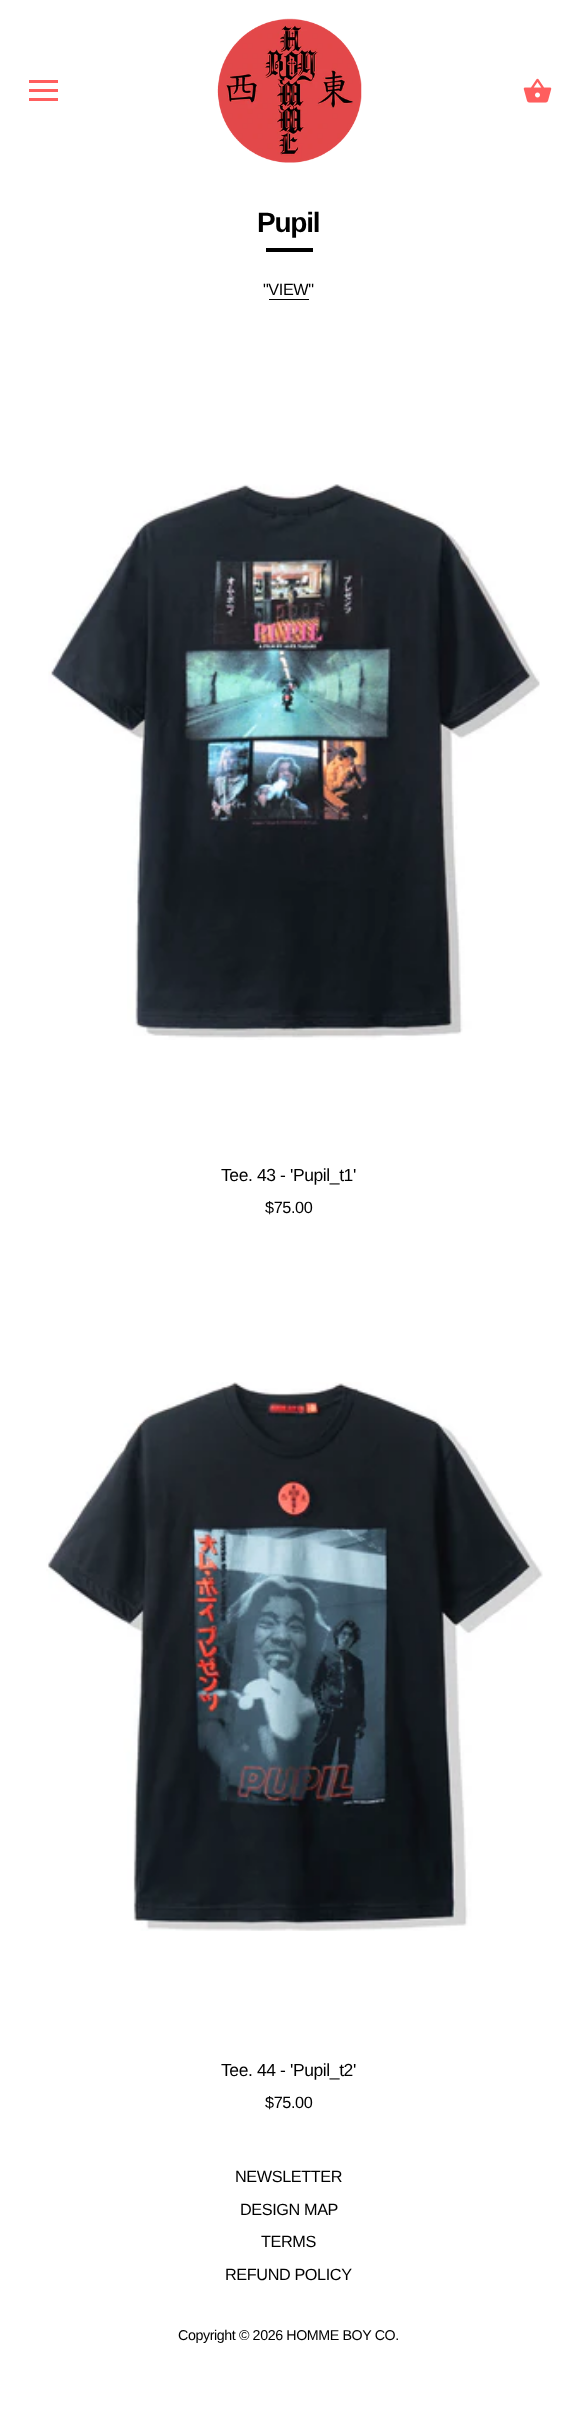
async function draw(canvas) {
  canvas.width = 577
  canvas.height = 2417
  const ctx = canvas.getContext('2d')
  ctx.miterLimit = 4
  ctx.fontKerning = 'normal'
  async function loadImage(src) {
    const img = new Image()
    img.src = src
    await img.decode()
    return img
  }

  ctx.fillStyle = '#fff'
  ctx.fillRect(0, 0, 577, 2417)
  ctx.fillStyle = '#ff5e5e'
  ctx.fillRect(29, 80, 29, 3)
  ctx.fillRect(29, 89, 29, 3)
  ctx.fillRect(29, 98, 29, 3)
  ctx.drawImage(await loadImage('image0.png'), 217, 18, 145, 145)
  ctx.drawImage(await loadImage('image1.png'), 523, 78, 29, 25)
  ctx.letterSpacing = '-1.25px'
  ctx.font = 'bold 28px Liberation Sans'
  ctx.fillStyle = '#000'
  ctx.fillText('Pupil', 257, 232)
  ctx.fillRect(266, 248, 47, 4)
  ctx.letterSpacing = '-0.4px'
  ctx.font = '16.25px Liberation Sans'
  ctx.fillText('"VIEW"', 263, 295)
  ctx.fillRect(269, 299, 40, 1)
  ctx.drawImage(await loadImage('image2.png'), 48, 484, 492, 556)
  ctx.font = '17.5px Liberation Sans'
  ctx.fillText('Tee. 43 - \'Pupil_t1\'', 221, 1181)
  ctx.font = '16.25px Liberation Sans'
  ctx.fillText('$75.00', 265, 1213)
  ctx.drawImage(await loadImage('image3.png'), 46, 1382, 497, 549)
  ctx.font = '17.5px Liberation Sans'
  ctx.fillText('Tee. 44 - \'Pupil_t2\'', 221, 2076)
  ctx.font = '16.25px Liberation Sans'
  ctx.fillText('$75.00', 265, 2108)
  ctx.fillText('NEWSLETTER', 235, 2182)
  ctx.fillText('DESIGN MAP', 240, 2215)
  ctx.fillText('TERMS', 261, 2247)
  ctx.fillText('REFUND POLICY', 225, 2280)
  ctx.font = '14.25px Liberation Sans'
  ctx.fillText('Copyright © 2026 HOMME BOY CO.', 178, 2340)
}

draw(document.querySelector('canvas'))
